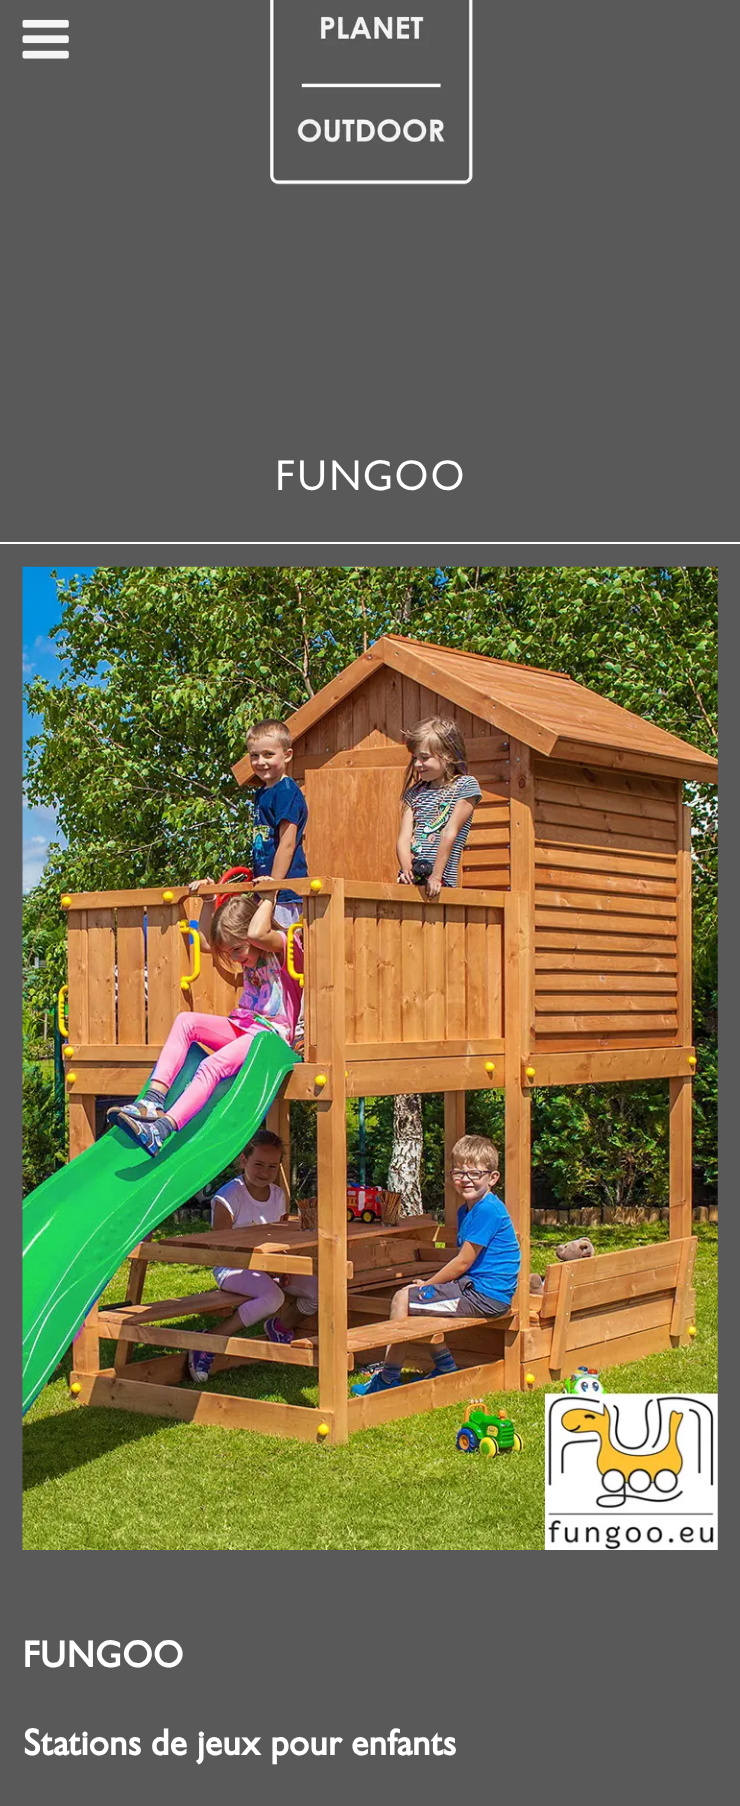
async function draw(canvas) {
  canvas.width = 740
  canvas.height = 1806
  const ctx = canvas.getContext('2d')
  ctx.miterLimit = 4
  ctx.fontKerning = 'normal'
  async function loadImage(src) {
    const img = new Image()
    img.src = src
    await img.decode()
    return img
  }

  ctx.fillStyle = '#595959'
  ctx.fillRect(0, 0, 740, 1806)
  ctx.drawImage(await loadImage('image0.png'), 22, 19, 47, 40)
  ctx.drawImage(await loadImage('image1.png'), 270, 0, 203, 185)
  ctx.fillStyle = '#fff'
  ctx.fillRect(0, 542, 740, 2)
  ctx.letterSpacing = '2.25px'
  ctx.font = 'bold 40.5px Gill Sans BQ'
  ctx.fillText('FUNGOO', 275, 490)
  ctx.drawImage(await loadImage('image2.png'), 22, 566, 696, 984)
  ctx.letterSpacing = '0px'
  ctx.font = 'bold 36px "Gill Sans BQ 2"'
  ctx.fillText('FUNGOO', 23, 1667)
  ctx.fillText('Stations de jeux pour enfants', 23, 1755)
}

draw(document.querySelector('canvas'))
